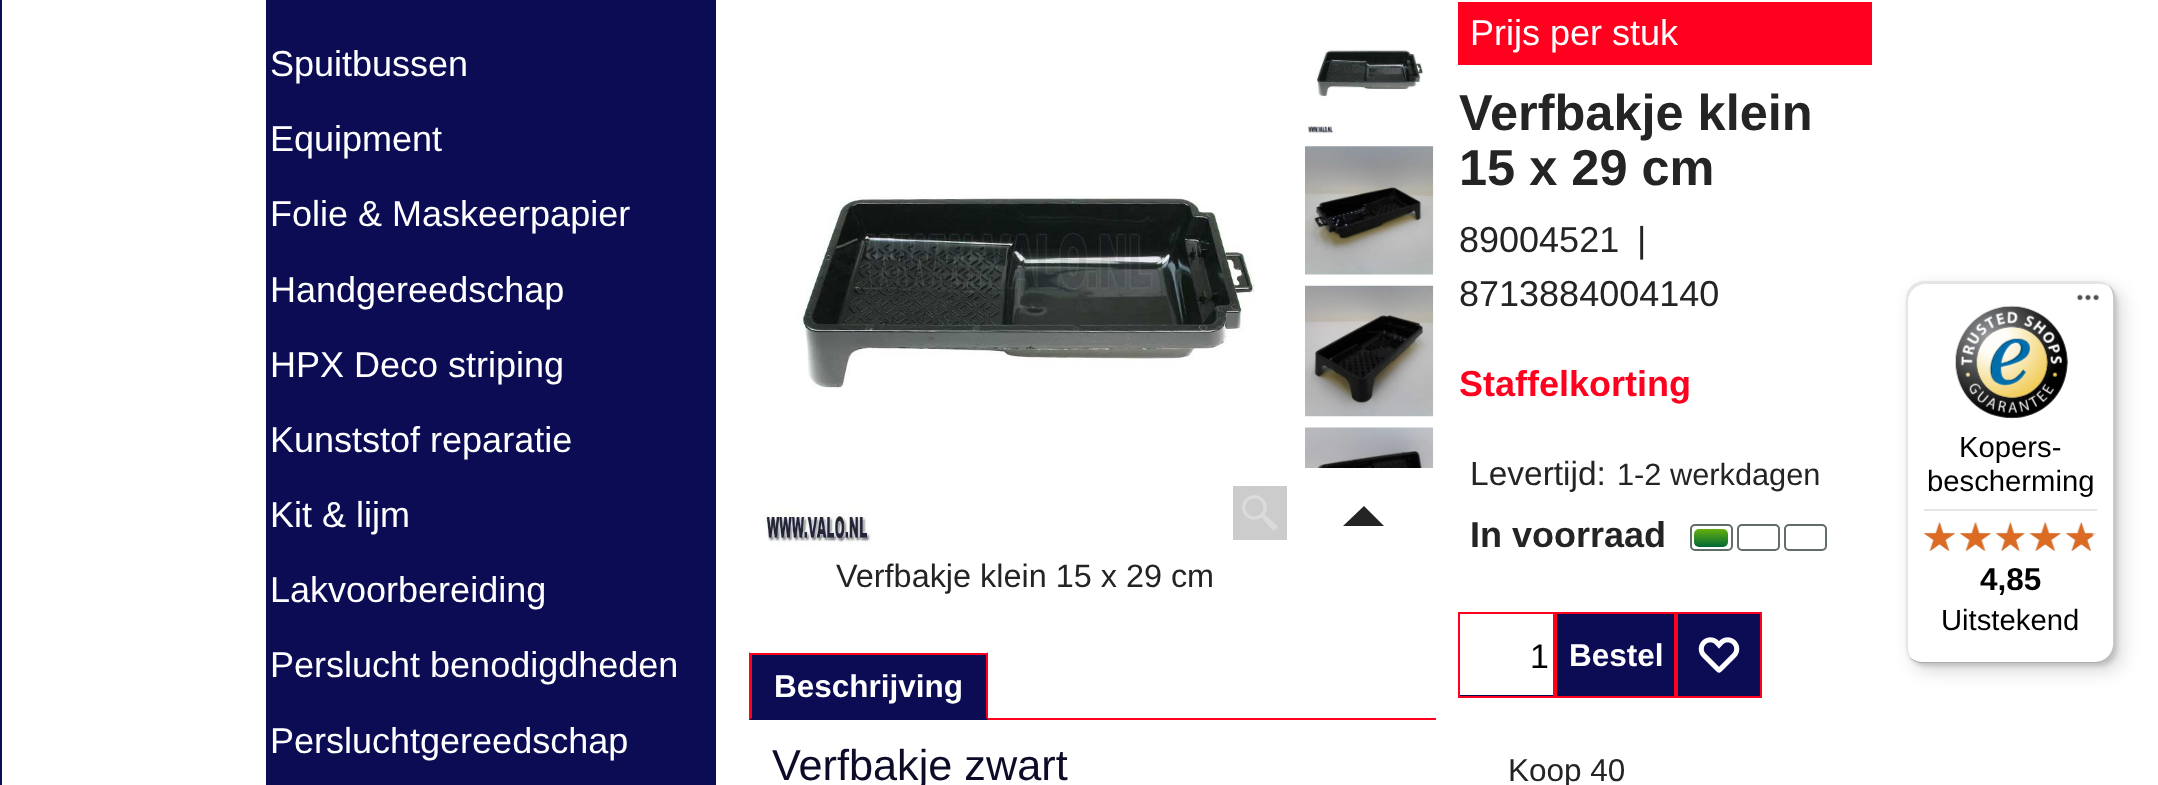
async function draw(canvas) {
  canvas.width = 2158
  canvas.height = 785
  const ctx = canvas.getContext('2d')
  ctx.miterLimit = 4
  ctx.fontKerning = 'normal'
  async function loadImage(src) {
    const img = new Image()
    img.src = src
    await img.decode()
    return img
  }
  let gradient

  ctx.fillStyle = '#fff'
  ctx.fillRect(0, 0, 2158, 785)
  ctx.strokeStyle = '#0c0c55'
  ctx.lineWidth = 2
  ctx.strokeRect(1, -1, 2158, 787)
  ctx.fillStyle = '#0c0c55'
  ctx.fillRect(266, 0, 450, 785)
  ctx.font = '36px Liberation Sans'
  ctx.fillStyle = '#fff'
  ctx.fillText('Spuitbussen', 270, 76)
  ctx.fillText('Equipment', 270, 151)
  ctx.fillText('Folie & Maskeerpapier', 270, 226)
  ctx.fillText('Handgereedschap', 270, 302)
  ctx.fillText('HPX Deco striping', 270, 377)
  ctx.fillText('Kunststof reparatie', 270, 452)
  ctx.fillText('Kit & lijm', 270, 527)
  ctx.fillText('Lakvoorbereiding', 270, 602)
  ctx.fillText('Perslucht benodigdheden', 270, 677)
  ctx.fillText('Persluchtgereedschap', 270, 753)
  ctx.drawImage(await loadImage('image0.png'), 1305, 49, 118, 85)
  ctx.drawImage(await loadImage('image1.png'), 1305, 146, 129, 129)
  ctx.drawImage(await loadImage('image2.png'), 1305, 285, 129, 132)
  ctx.drawImage(await loadImage('image3.png'), 1305, 427, 129, 41)
  ctx.fillStyle = '#242424'
  ctx.beginPath()
  ctx.moveTo(1384, 526)
  ctx.lineTo(1364, 506)
  ctx.lineTo(1343, 526)
  ctx.closePath()
  ctx.fill()
  ctx.drawImage(await loadImage('image4.png'), 763, 196, 492, 350)
  ctx.fillStyle = '#ccc'
  ctx.fillRect(1233, 486, 54, 54)
  ctx.drawImage(await loadImage('image5.png'), 1242, 495, 36, 36)
  ctx.font = '32.4px Liberation Sans'
  ctx.fillStyle = '#242424'
  ctx.fillText('Verfbakje klein 15 x 29 cm', 836, 587)
  ctx.fillStyle = '#ff001f'
  ctx.fillRect(1458, 2, 414, 63)
  ctx.font = '36px Liberation Sans'
  ctx.fillStyle = '#fff'
  ctx.fillText('Prijs per stuk', 1470, 45)
  ctx.font = 'bold 50.5px Liberation Sans'
  ctx.fillStyle = '#242424'
  ctx.fillText('Verfbakje klein', 1459, 130)
  ctx.fillText('15 x 29 cm', 1459, 185)
  ctx.font = '36px Liberation Sans'
  ctx.fillText('89004521', 1459, 252)
  ctx.fillText('|', 1637, 252)
  ctx.fillText('8713884004140', 1459, 306)
  ctx.font = 'bold 36px Liberation Sans'
  ctx.fillStyle = '#ff001f'
  ctx.fillText('Staffelkorting', 1459, 396)
  ctx.font = '33.5px Liberation Sans'
  ctx.fillStyle = '#242424'
  ctx.fillText('Levertijd:', 1470, 485)
  ctx.font = '30.75px Liberation Sans'
  ctx.fillText('1-2 werkdagen', 1617, 485)
  ctx.font = 'bold 36px Liberation Sans'
  ctx.fillText('In voorraad', 1470, 547)
  ctx.beginPath()
  ctx.roundRect(1691, 525, 41, 25, 4)
  ctx.strokeStyle = '#626d66'
  ctx.stroke()
  gradient = ctx.createLinearGradient(1694, 529, 1694, 547)
  gradient.addColorStop(0, '#65b00f')
  gradient.addColorStop(1, '#006837')
  ctx.fillStyle = gradient
  ctx.beginPath()
  ctx.roundRect(1694, 529, 34, 18, 5)
  ctx.fill()
  ctx.beginPath()
  ctx.roundRect(1738, 525, 41, 25, 4)
  ctx.stroke()
  ctx.beginPath()
  ctx.roundRect(1785, 525, 41, 25, 4)
  ctx.stroke()
  ctx.fillStyle = '#0c0c55'
  ctx.fillRect(1460, 695, 93, 1)
  ctx.strokeStyle = '#ff001f'
  ctx.strokeRect(1459, 613, 95, 84)
  ctx.font = '34px Liberation Sans'
  ctx.fillStyle = '#000'
  ctx.fillText('1', 1530, 668)
  ctx.fillStyle = '#0c0c55'
  ctx.beginPath()
  ctx.rect(1556, 613, 119, 84)
  ctx.fill()
  ctx.stroke()
  ctx.font = 'bold 31.5px Liberation Sans'
  ctx.fillStyle = '#fff'
  ctx.fillText('Bestel', 1569, 666)
  ctx.fillStyle = '#0c0c55'
  ctx.beginPath()
  ctx.rect(1677, 613, 84, 84)
  ctx.fill()
  ctx.stroke()
  ctx.drawImage(await loadImage('image6.png'), 1698, 637, 42, 36)
  ctx.font = '31.5px Liberation Sans'
  ctx.fillStyle = '#242424'
  ctx.fillText('Koop 40', 1508, 781)
  ctx.fillStyle = '#0c0c55'
  ctx.fillRect(749, 655, 239, 65)
  ctx.fillStyle = '#ff001f'
  ctx.fillRect(749, 653, 239, 2)
  ctx.beginPath()
  ctx.moveTo(988, 652)
  ctx.lineTo(988, 720)
  ctx.lineTo(986, 718)
  ctx.lineTo(986, 655)
  ctx.closePath()
  ctx.fill()
  ctx.beginPath()
  ctx.moveTo(749, 720)
  ctx.lineTo(749, 652)
  ctx.lineTo(752, 655)
  ctx.lineTo(752, 718)
  ctx.closePath()
  ctx.fill()
  ctx.font = 'bold 31.5px Liberation Sans'
  ctx.fillStyle = '#fff'
  ctx.fillText('Beschrijving', 774, 697)
  ctx.fillStyle = '#ff001f'
  ctx.fillRect(988, 718, 448, 2)
  ctx.font = '43.25px Liberation Sans'
  ctx.fillStyle = '#0c0c29'
  ctx.fillText('Verfbakje zwart', 772, 780)
  ctx.fillStyle = '#00000026'
  ctx.filter = 'blur(9px)'
  ctx.beginPath()
  ctx.roundRect(1913, 288, 209, 383, 18)
  ctx.fill()
  ctx.filter = 'none'
  ctx.filter = 'blur(2px)'
  ctx.beginPath()
  ctx.roundRect(1908, 284, 209, 382, 18)
  ctx.fill()
  ctx.filter = 'none'
  ctx.fillStyle = '#fff'
  ctx.beginPath()
  ctx.roundRect(1906, 281, 209, 383, 18)
  ctx.fill()
  ctx.fillStyle = '#0000001a'
  ctx.beginPath()
  ctx.moveTo(1926, 284)
  ctx.lineTo(2099, 284)
  ctx.bezierCurveTo(2105, 284, 2110, 286, 2113, 290)
  ctx.bezierCurveTo(2110, 285, 2104, 281, 2097, 281)
  ctx.lineTo(1924, 281)
  ctx.bezierCurveTo(1914, 281, 1906, 289, 1906, 299)
  ctx.lineTo(1906, 646)
  ctx.bezierCurveTo(1906, 651, 1908, 656, 1912, 660)
  ctx.bezierCurveTo(1910, 656, 1908, 652, 1908, 648)
  ctx.lineTo(1908, 302)
  ctx.bezierCurveTo(1908, 292, 1916, 284, 1926, 284)
  ctx.closePath()
  ctx.fill()
  ctx.fillStyle = '#00000033'
  ctx.beginPath()
  ctx.moveTo(1909, 657)
  ctx.bezierCurveTo(1913, 661, 1918, 664, 1924, 664)
  ctx.lineTo(2097, 664)
  ctx.bezierCurveTo(2107, 664, 2115, 656, 2115, 646)
  ctx.lineTo(2115, 299)
  ctx.bezierCurveTo(2115, 294, 2113, 289, 2109, 285)
  ctx.bezierCurveTo(2111, 289, 2113, 293, 2113, 297)
  ctx.lineTo(2113, 644)
  ctx.bezierCurveTo(2113, 653, 2105, 662, 2095, 662)
  ctx.lineTo(1922, 662)
  ctx.bezierCurveTo(1917, 662, 1913, 660, 1909, 657)
  ctx.closePath()
  ctx.fill()
  ctx.fillStyle = '#32323233'
  ctx.beginPath()
  ctx.moveTo(1910, 658)
  ctx.bezierCurveTo(1914, 662, 1919, 664, 1924, 664)
  ctx.lineTo(2097, 664)
  ctx.bezierCurveTo(2107, 664, 2115, 656, 2115, 646)
  ctx.lineTo(2115, 299)
  ctx.bezierCurveTo(2115, 294, 2113, 289, 2110, 286)
  ctx.bezierCurveTo(2112, 289, 2114, 293, 2114, 298)
  ctx.lineTo(2114, 644)
  ctx.bezierCurveTo(2114, 654, 2106, 662, 2096, 662)
  ctx.lineTo(1922, 662)
  ctx.bezierCurveTo(1918, 662, 1914, 660, 1910, 658)
  ctx.closePath()
  ctx.fill()
  ctx.fillStyle = '#ffffff4d'
  ctx.beginPath()
  ctx.moveTo(1911, 659)
  ctx.bezierCurveTo(1914, 662, 1919, 664, 1924, 664)
  ctx.lineTo(2097, 664)
  ctx.bezierCurveTo(2107, 664, 2115, 656, 2115, 646)
  ctx.lineTo(2115, 299)
  ctx.bezierCurveTo(2115, 294, 2113, 289, 2110, 286)
  ctx.bezierCurveTo(2112, 289, 2114, 293, 2114, 298)
  ctx.lineTo(2114, 645)
  ctx.bezierCurveTo(2114, 655, 2106, 663, 2096, 663)
  ctx.lineTo(1923, 663)
  ctx.bezierCurveTo(1918, 663, 1914, 661, 1911, 659)
  ctx.closePath()
  ctx.fill()
  ctx.drawImage(await loadImage('image7.png'), 2076, 294, 23, 7)
  ctx.drawImage(await loadImage('image8.png'), 1955, 305, 113, 114)
  ctx.font = '29.25px Liberation Sans'
  ctx.fillStyle = '#000'
  ctx.fillText('Kopers-', 1959, 457)
  ctx.fillText('bescherming', 1927, 491)
  ctx.fillStyle = '#e5e5e5'
  ctx.fillRect(1924, 509, 173, 2)
  ctx.drawImage(await loadImage('image14.png'), 1924, 522, 31, 29)
  ctx.drawImage(await loadImage('image9.png'), 1923, 522, 32, 29)
  ctx.drawImage(await loadImage('image15.png'), 1960, 522, 31, 29)
  ctx.drawImage(await loadImage('image10.png'), 1959, 522, 33, 29)
  ctx.drawImage(await loadImage('image16.png'), 1996, 522, 29, 29)
  ctx.drawImage(await loadImage('image11.png'), 1995, 522, 30, 29)
  ctx.drawImage(await loadImage('image17.png'), 2029, 522, 32, 29)
  ctx.drawImage(await loadImage('image12.png'), 2029, 522, 32, 29)
  ctx.drawImage(await loadImage('image18.png'), 2066, 522, 31, 29)
  ctx.drawImage(await loadImage('image13.png'), 2065, 522, 28, 29)
  ctx.font = 'bold 31.5px Liberation Sans'
  ctx.fillStyle = '#000'
  ctx.fillText('4,85', 1980, 590)
  ctx.font = '29.25px Liberation Sans'
  ctx.fillText('Uitstekend', 1941, 630)
}

draw(document.querySelector('canvas'))
